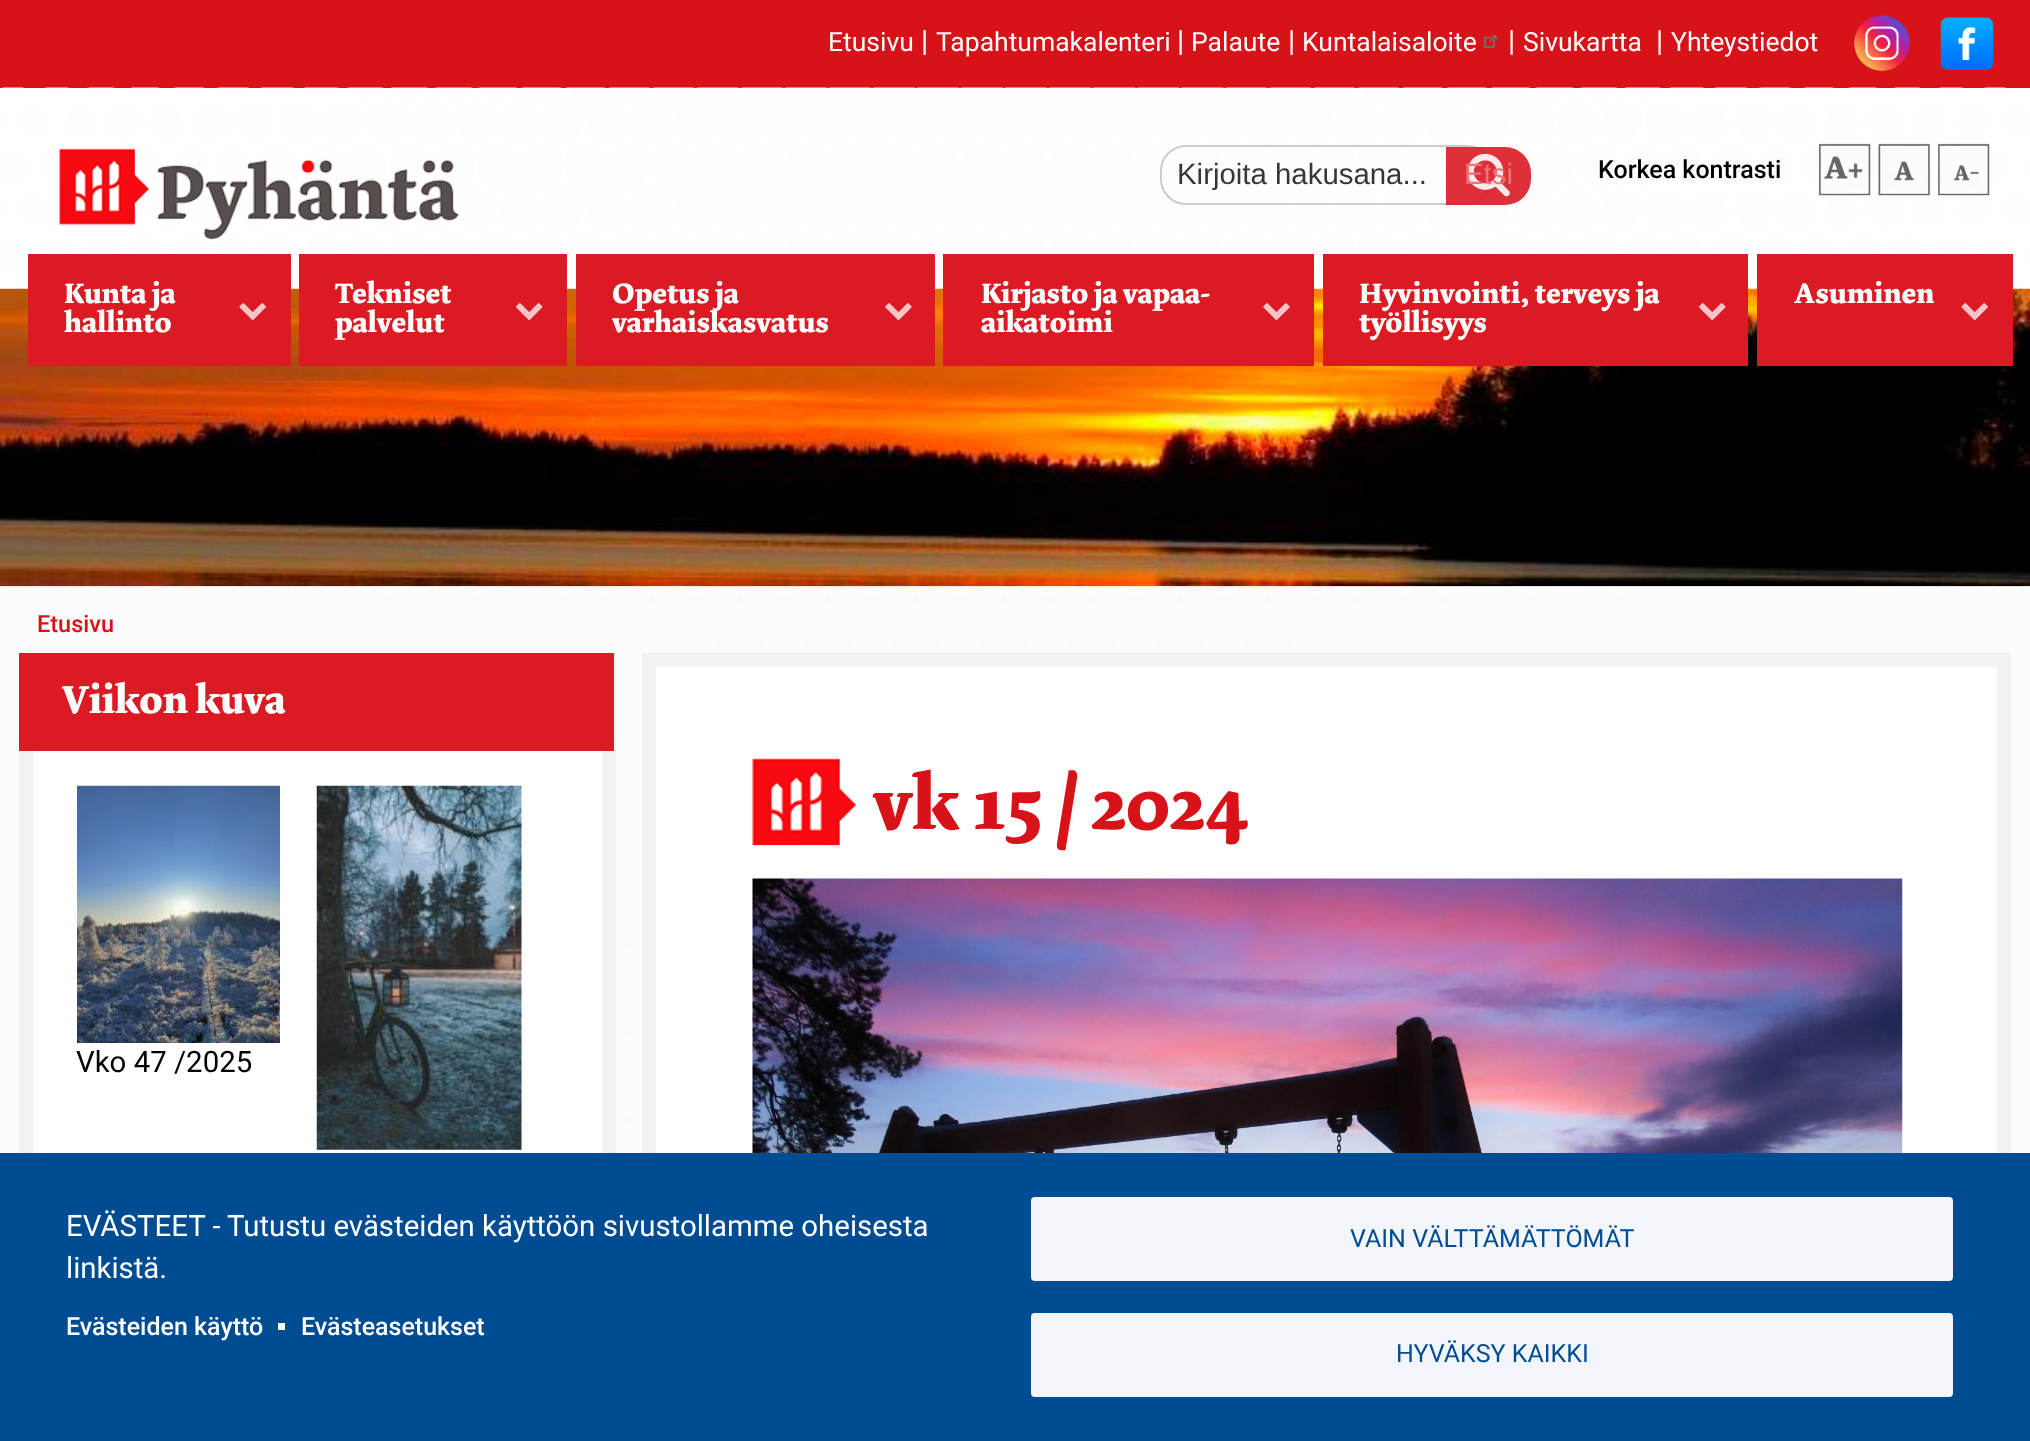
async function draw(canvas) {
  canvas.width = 2030
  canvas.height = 1441
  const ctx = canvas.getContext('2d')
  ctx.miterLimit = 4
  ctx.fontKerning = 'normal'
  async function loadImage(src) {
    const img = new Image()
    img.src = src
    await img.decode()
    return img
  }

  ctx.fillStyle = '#fcfcfc'
  ctx.fillRect(0, 0, 2030, 1441)
  ctx.drawImage(await loadImage('image0.png'), 11, 593, 1919, 536)
  ctx.fillStyle = '#d81219'
  ctx.fillRect(0, 0, 2030, 88)
  ctx.font = '26.5px Roboto'
  ctx.fillStyle = '#fff'
  ctx.fillText('Etusivu', 828, 51)
  ctx.font = '29.4px Roboto'
  ctx.fillText('|', 921, 51)
  ctx.font = '26.5px Roboto'
  ctx.fillText('Tapahtumakalenteri', 936, 51)
  ctx.font = '29.4px Roboto'
  ctx.fillText('|', 1177, 51)
  ctx.font = '26.5px Roboto'
  ctx.fillText('Palaute', 1191, 51)
  ctx.font = '29.4px Roboto'
  ctx.fillText('|', 1288, 51)
  ctx.font = '26.5px Roboto'
  ctx.fillText('Kuntalaisaloite', 1302, 51)
  ctx.drawImage(await loadImage('image1.png'), 1483, 34, 14, 14)
  ctx.font = '29.4px Roboto'
  ctx.fillText('|', 1508, 51)
  ctx.font = '26.5px Roboto'
  ctx.fillText('Sivukartta', 1523, 51)
  ctx.font = '29.4px Roboto'
  ctx.fillText('|', 1656, 51)
  ctx.font = '26.5px Roboto'
  ctx.fillText('Yhteystiedot', 1671, 51)
  ctx.drawImage(await loadImage('image2.png'), 1854, 15, 57, 56)
  ctx.drawImage(await loadImage('image3.png'), 1940, 17, 54, 53)
  ctx.fillRect(0, 88, 2030, 201)
  ctx.drawImage(await loadImage('image4.png'), 0, 87, 2030, 202)
  ctx.fillStyle = '#ffffffcc'
  ctx.fillRect(0, 88, 2030, 201)
  ctx.drawImage(await loadImage('image5.png'), 59, 148, 400, 92)
  ctx.beginPath()
  ctx.roundRect(1161, 146, 331, 58, 25)
  ctx.strokeStyle = '#ccc'
  ctx.lineWidth = 2
  ctx.stroke()
  ctx.font = '29.4px Liberation Sans'
  ctx.fillStyle = '#363636'
  ctx.fillText('Kirjoita hakusana...', 1177, 184)
  ctx.fillStyle = '#db1a23e6'
  ctx.beginPath()
  ctx.roundRect(1446, 147, 85, 58, [0, 26, 26, 0])
  ctx.fill()
  ctx.drawImage(await loadImage('image6.png'), 1467, 153, 43, 44)
  ctx.fillStyle = '#e9757b'
  ctx.fillText('Etsi', 1464, 184)
  ctx.font = '500 25px Roboto'
  ctx.fillStyle = '#000'
  ctx.fillText('Korkea kontrasti', 1598, 178)
  ctx.drawImage(await loadImage('image7.png'), 1819, 143, 52, 53)
  ctx.drawImage(await loadImage('image8.png'), 1878, 143, 53, 53)
  ctx.drawImage(await loadImage('image9.png'), 1938, 143, 52, 53)
  ctx.drawImage(await loadImage('image13.png'), 0, 288, 2030, 299)
  ctx.fillStyle = '#db1a23'
  ctx.fillRect(28, 254, 263, 112)
  ctx.font = 'bold 29.4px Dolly'
  ctx.fillStyle = '#fff'
  ctx.fillText('Kunta ja', 64, 303)
  ctx.drawImage(await loadImage('image10.png'), 239, 303, 27, 17)
  ctx.fillText('hallinto', 64, 332)
  ctx.fillStyle = '#db1a23'
  ctx.fillRect(299, 254, 268, 112)
  ctx.fillStyle = '#fff'
  ctx.fillText('Tekniset', 335, 303)
  ctx.fillText('palvelut', 335, 332)
  ctx.drawImage(await loadImage('image11.png'), 516, 303, 27, 17)
  ctx.fillStyle = '#db1a23'
  ctx.fillRect(576, 254, 359, 112)
  ctx.fillStyle = '#fff'
  ctx.fillText('Opetus ja', 612, 303)
  ctx.drawImage(await loadImage('image12.png'), 885, 303, 27, 17)
  ctx.fillText('varhaiskasvatus', 612, 332)
  ctx.fillStyle = '#db1a23'
  ctx.fillRect(943, 254, 371, 112)
  ctx.fillStyle = '#fff'
  ctx.fillText('Kirjasto ja vapaa-', 981, 303)
  ctx.drawImage(await loadImage('image12.png'), 1263, 303, 27, 17)
  ctx.fillText('aikatoimi', 981, 332)
  ctx.fillStyle = '#db1a23'
  ctx.fillRect(1323, 254, 425, 112)
  ctx.fillStyle = '#fff'
  ctx.fillText('Hyvinvointi, terveys ja', 1359, 303)
  ctx.drawImage(await loadImage('image11.png'), 1699, 303, 27, 17)
  ctx.fillText('työllisyys', 1359, 332)
  ctx.fillStyle = '#db1a23'
  ctx.fillRect(1757, 254, 256, 112)
  ctx.fillStyle = '#fff'
  ctx.fillText('Asuminen', 1794, 303)
  ctx.drawImage(await loadImage('image10.png'), 1961, 303, 27, 17)
  ctx.fillStyle = '#fcfcfc99'
  ctx.fillRect(0, 586, 2030, 60)
  ctx.font = '500 23.5px Roboto'
  ctx.fillStyle = '#d81219'
  ctx.fillText('Etusivu', 37, 632)
  ctx.fillStyle = '#fcfcfc99'
  ctx.fillRect(56, 685, 1851, 442)
  ctx.fillStyle = '#fff'
  ctx.fillRect(33, 751, 569, 402)
  ctx.strokeStyle = '#f2f2f2'
  ctx.lineWidth = 14
  ctx.strokeRect(26, 660, 583, 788)
  ctx.fillStyle = '#db1a23'
  ctx.fillRect(19, 653, 595, 98)
  ctx.font = 'bold 40.5px Dolly'
  ctx.fillStyle = '#fff'
  ctx.fillText('Viikon kuva', 62, 713)
  ctx.drawImage(await loadImage('image14.png'), 77, 785, 203, 258)
  ctx.font = '29.4px Roboto'
  ctx.fillStyle = '#000'
  ctx.fillText('Vko 47 /2025', 76, 1072)
  ctx.drawImage(await loadImage('image15.png'), 316, 785, 206, 365)
  ctx.fillStyle = '#fff'
  ctx.fillRect(656, 667, 1341, 486)
  ctx.strokeRect(649, 660, 1355, 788)
  ctx.drawImage(await loadImage('image16.png'), 752, 757, 104, 89)
  ctx.font = 'bold 77px Dolly'
  ctx.fillStyle = '#d81219'
  ctx.fillText('vk 15 / 2024', 873, 829)
  ctx.drawImage(await loadImage('image17.png'), 752, 878, 1151, 275)
  ctx.fillStyle = '#004c93'
  ctx.fillRect(0, 1153, 2030, 288)
  ctx.font = '29.4px Roboto'
  ctx.fillStyle = '#fff'
  ctx.fillText('EVÄSTEET -', 66, 1236)
  ctx.fillText('Tutustu evästeiden käyttöön sivustollamme oheisesta', 227, 1236)
  ctx.fillText('linkistä.', 66, 1278)
  ctx.font = '500 25px Roboto'
  ctx.fillText('Evästeiden käyttö', 66, 1335)
  ctx.fillRect(278, 1323, 7, 7)
  ctx.fillText('Evästeasetukset', 301, 1335)
  ctx.fillStyle = '#f2f6fa'
  ctx.beginPath()
  ctx.roundRect(1033, 1199, 918, 80, 2)
  ctx.fill()
  ctx.strokeStyle = '#f2f6fa'
  ctx.lineWidth = 4
  ctx.stroke()
  ctx.font = '25px Roboto'
  ctx.fillStyle = '#004c93'
  ctx.fillText('VAIN VÄLTTÄMÄTTÖMÄT', 1350, 1247)
  ctx.fillStyle = '#f2f6fa'
  ctx.beginPath()
  ctx.roundRect(1033, 1315, 918, 80, 2)
  ctx.fill()
  ctx.stroke()
  ctx.fillStyle = '#004c93'
  ctx.fillText('HYVÄKSY KAIKKI', 1396, 1362)
}

draw(document.querySelector('canvas'))
